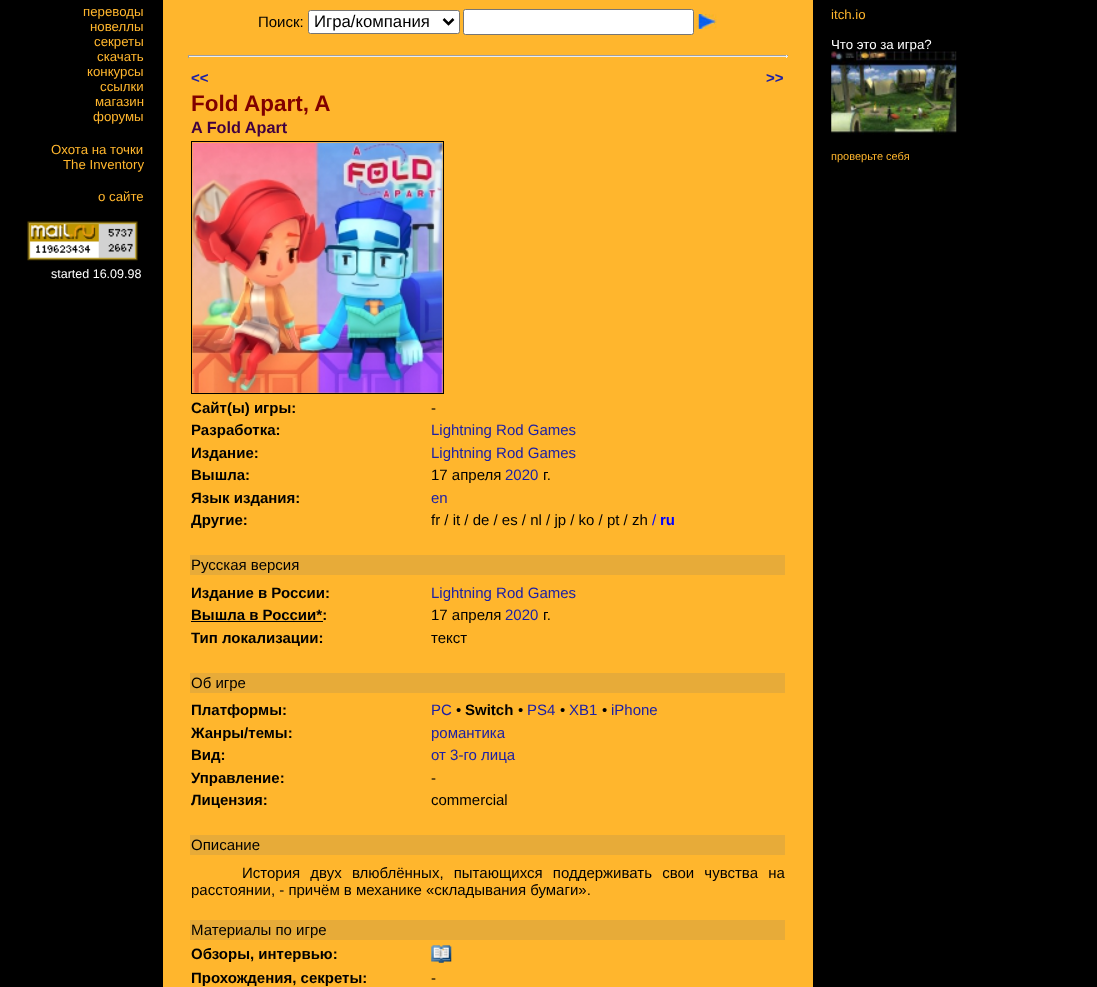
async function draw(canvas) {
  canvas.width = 1097
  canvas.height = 987
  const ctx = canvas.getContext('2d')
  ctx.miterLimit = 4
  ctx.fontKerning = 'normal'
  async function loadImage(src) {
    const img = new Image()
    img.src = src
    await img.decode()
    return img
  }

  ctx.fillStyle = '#000'
  ctx.fillRect(0, 0, 1097, 987)
  ctx.font = '13.25px Liberation Sans'
  ctx.fillStyle = '#ffb62d'
  ctx.fillText('переводы', 83, 16)
  ctx.fillText('новеллы', 90, 31)
  ctx.fillText('секреты', 94, 46)
  ctx.fillText('скачать', 97, 61)
  ctx.fillText('конкурсы', 87, 76)
  ctx.fillText('ссылки', 100, 91)
  ctx.fillText('магазин', 95, 106)
  ctx.fillText('форумы', 93, 121)
  ctx.fillText('Охота на точки', 51, 154)
  ctx.fillText('The Inventory', 63, 169)
  ctx.fillText('о сайте', 98, 201)
  ctx.drawImage(await loadImage('image0.png'), 27, 221, 111, 40)
  ctx.font = '12.5px Liberation Sans'
  ctx.fillStyle = '#fff'
  ctx.fillText('started 16.09.98', 51, 278)
  ctx.fillStyle = '#ffb62d'
  ctx.fillRect(163, 0, 650, 987)
  ctx.font = '15px Liberation Sans'
  ctx.fillStyle = '#000'
  ctx.fillText('Поиск:', 258, 27)
  ctx.fillStyle = '#fff'
  ctx.beginPath()
  ctx.roundRect(308.5, 10.5, 151, 23, 2)
  ctx.fill()
  ctx.strokeStyle = '#767676'
  ctx.stroke()
  ctx.beginPath()
  ctx.moveTo(443.5, 19)
  ctx.lineTo(448.5, 24)
  ctx.lineTo(453.5, 19)
  ctx.strokeStyle = '#000'
  ctx.lineWidth = 2.5
  ctx.stroke()
  ctx.font = '16.75px Liberation Sans'
  ctx.fillStyle = '#000'
  ctx.fillText('Игра/компания', 314, 27)
  ctx.fillStyle = '#fff'
  ctx.beginPath()
  ctx.roundRect(463.5, 9.5, 230, 25, 2)
  ctx.fill()
  ctx.strokeStyle = '#767676'
  ctx.lineWidth = 1
  ctx.stroke()
  ctx.drawImage(await loadImage('image1.png'), 696, 14, 21, 15)
  ctx.fillStyle = '#9f9f9f'
  ctx.fillRect(188, 55, 600, 1)
  ctx.fillStyle = '#eee'
  ctx.fillRect(786, 55, 1, 3)
  ctx.fillRect(188, 56, 600, 1)
  ctx.fillStyle = '#9f9f9f'
  ctx.fillRect(188, 55, 1, 3)
  ctx.font = 'bold 15px Liberation Sans'
  ctx.fillStyle = '#1d20a5'
  ctx.fillText('<<', 191, 83)
  ctx.fillText('>>', 766, 83)
  ctx.font = 'bold 22.5px Liberation Sans'
  ctx.fillStyle = '#800000'
  ctx.fillText('Fold Apart, A', 191, 111)
  ctx.font = 'bold 16.25px Liberation Sans'
  ctx.fillStyle = '#400040'
  ctx.fillText('A Fold Apart', 191, 133)
  ctx.strokeStyle = '#000'
  ctx.strokeRect(191.5, 141.5, 252, 252)
  ctx.drawImage(await loadImage('image2.png'), 192, 142, 251, 251)
  ctx.font = 'bold 15px Liberation Sans'
  ctx.fillStyle = '#000'
  ctx.fillText('Сайт(ы) игры:', 191, 413)
  ctx.font = '15px Liberation Sans'
  ctx.fillText('-', 431, 413)
  ctx.font = 'bold 15px Liberation Sans'
  ctx.fillText('Разработка:', 191, 435)
  ctx.font = '15px Liberation Sans'
  ctx.fillStyle = '#1d20a5'
  ctx.fillText('Lightning Rod Games', 431, 435)
  ctx.font = 'bold 15px Liberation Sans'
  ctx.fillStyle = '#000'
  ctx.fillText('Издание:', 191, 458)
  ctx.font = '15px Liberation Sans'
  ctx.fillStyle = '#1d20a5'
  ctx.fillText('Lightning Rod Games', 431, 458)
  ctx.font = 'bold 15px Liberation Sans'
  ctx.fillStyle = '#000'
  ctx.fillText('Вышла:', 191, 480)
  ctx.font = '15px Liberation Sans'
  ctx.fillText('17 апреля', 431, 480)
  ctx.fillStyle = '#1d20a5'
  ctx.fillText('2020', 505, 480)
  ctx.fillStyle = '#000'
  ctx.fillText('г.', 543, 480)
  ctx.font = 'bold 15px Liberation Sans'
  ctx.fillText('Язык издания:', 191, 503)
  ctx.font = '15px Liberation Sans'
  ctx.fillStyle = '#1d20a5'
  ctx.fillText('en', 431, 503)
  ctx.font = 'bold 15px Liberation Sans'
  ctx.fillStyle = '#000'
  ctx.fillText('Другие:', 191, 525)
  ctx.font = '15px Liberation Sans'
  ctx.fillText('fr / it / de / es / nl / jp / ko / pt / zh', 431, 525)
  ctx.fillStyle = '#00f'
  ctx.fillText('/', 652, 525)
  ctx.font = 'bold 15px Liberation Sans'
  ctx.fillText('ru', 660, 525)
  ctx.fillStyle = '#e7ab39'
  ctx.fillRect(190, 555, 595, 20)
  ctx.font = '15px Liberation Sans'
  ctx.fillStyle = '#000'
  ctx.fillText('Русская версия', 191, 570)
  ctx.font = 'bold 15px Liberation Sans'
  ctx.fillText('Издание в России:', 191, 598)
  ctx.font = '15px Liberation Sans'
  ctx.fillStyle = '#1d20a5'
  ctx.fillText('Lightning Rod Games', 431, 598)
  ctx.font = 'bold 15px Liberation Sans'
  ctx.fillStyle = '#000'
  ctx.fillText('Вышла в России*:', 191, 620)
  ctx.fillRect(191, 621, 132, 1)
  ctx.font = '15px Liberation Sans'
  ctx.fillText('17 апреля', 431, 620)
  ctx.fillStyle = '#1d20a5'
  ctx.fillText('2020', 505, 620)
  ctx.fillStyle = '#000'
  ctx.fillText('г.', 543, 620)
  ctx.font = 'bold 15px Liberation Sans'
  ctx.fillText('Тип локализации:', 191, 643)
  ctx.font = '15px Liberation Sans'
  ctx.fillText('текст', 431, 643)
  ctx.fillStyle = '#e7ab39'
  ctx.fillRect(190, 673, 595, 20)
  ctx.fillStyle = '#000'
  ctx.fillText('Об игре', 191, 688)
  ctx.font = 'bold 15px Liberation Sans'
  ctx.fillText('Платформы:', 191, 715)
  ctx.font = '15px Liberation Sans'
  ctx.fillStyle = '#1d20a5'
  ctx.fillText('PC', 431, 715)
  ctx.fillStyle = '#000'
  ctx.fillText('•', 456, 715)
  ctx.font = 'bold 15px Liberation Sans'
  ctx.fillText('Switch', 465, 715)
  ctx.font = '15px Liberation Sans'
  ctx.fillText('•', 518, 715)
  ctx.fillStyle = '#1d20a5'
  ctx.fillText('PS4', 527, 715)
  ctx.fillStyle = '#000'
  ctx.fillText('•', 560, 715)
  ctx.fillStyle = '#1d20a5'
  ctx.fillText('XB1', 569, 715)
  ctx.fillStyle = '#000'
  ctx.fillText('•', 602, 715)
  ctx.fillStyle = '#1d20a5'
  ctx.fillText('iPhone', 611, 715)
  ctx.font = 'bold 15px Liberation Sans'
  ctx.fillStyle = '#000'
  ctx.fillText('Жанры/темы:', 191, 738)
  ctx.font = '15px Liberation Sans'
  ctx.fillStyle = '#1d20a5'
  ctx.fillText('романтика', 431, 738)
  ctx.font = 'bold 15px Liberation Sans'
  ctx.fillStyle = '#000'
  ctx.fillText('Вид:', 191, 760)
  ctx.font = '15px Liberation Sans'
  ctx.fillStyle = '#1d20a5'
  ctx.fillText('от 3-го лица', 431, 760)
  ctx.font = 'bold 15px Liberation Sans'
  ctx.fillStyle = '#000'
  ctx.fillText('Управление:', 191, 783)
  ctx.font = '15px Liberation Sans'
  ctx.fillText('-', 431, 783)
  ctx.font = 'bold 15px Liberation Sans'
  ctx.fillText('Лицензия:', 191, 805)
  ctx.font = '15px Liberation Sans'
  ctx.fillText('commercial', 431, 805)
  ctx.fillStyle = '#e7ab39'
  ctx.fillRect(190, 835, 595, 20)
  ctx.fillStyle = '#000'
  ctx.fillText('Описание', 191, 850)
  ctx.wordSpacing = '6px'
  ctx.fillText('История двух влюблённых, пытающихся поддерживать свои чувства на', 242, 878)
  ctx.wordSpacing = '0px'
  ctx.fillText('расстоянии, - причём в механике «складывания бумаги».', 191, 895)
  ctx.fillStyle = '#e7ab39'
  ctx.fillRect(190, 920, 595, 20)
  ctx.fillStyle = '#000'
  ctx.fillText('Материалы по игре', 191, 935)
  ctx.font = 'bold 15px Liberation Sans'
  ctx.fillText('Обзоры, интервью:', 191, 959)
  ctx.drawImage(await loadImage('image3.png'), 431, 945, 21, 18)
  ctx.fillText('Прохождения, секреты:', 191, 983)
  ctx.font = '15px Liberation Sans'
  ctx.fillText('-', 431, 983)
  ctx.font = '13.25px Liberation Sans'
  ctx.fillStyle = '#ffb62d'
  ctx.fillText('itch.io', 831, 19)
  ctx.fillStyle = '#fff'
  ctx.fillText('Что это за игра?', 831, 49)
  ctx.drawImage(await loadImage('image4.png'), 831, 51, 126, 84)
  ctx.font = '11px Liberation Sans'
  ctx.fillStyle = '#ffb62d'
  ctx.fillText('проверьте себя', 831, 160)
}

draw(document.querySelector('canvas'))
